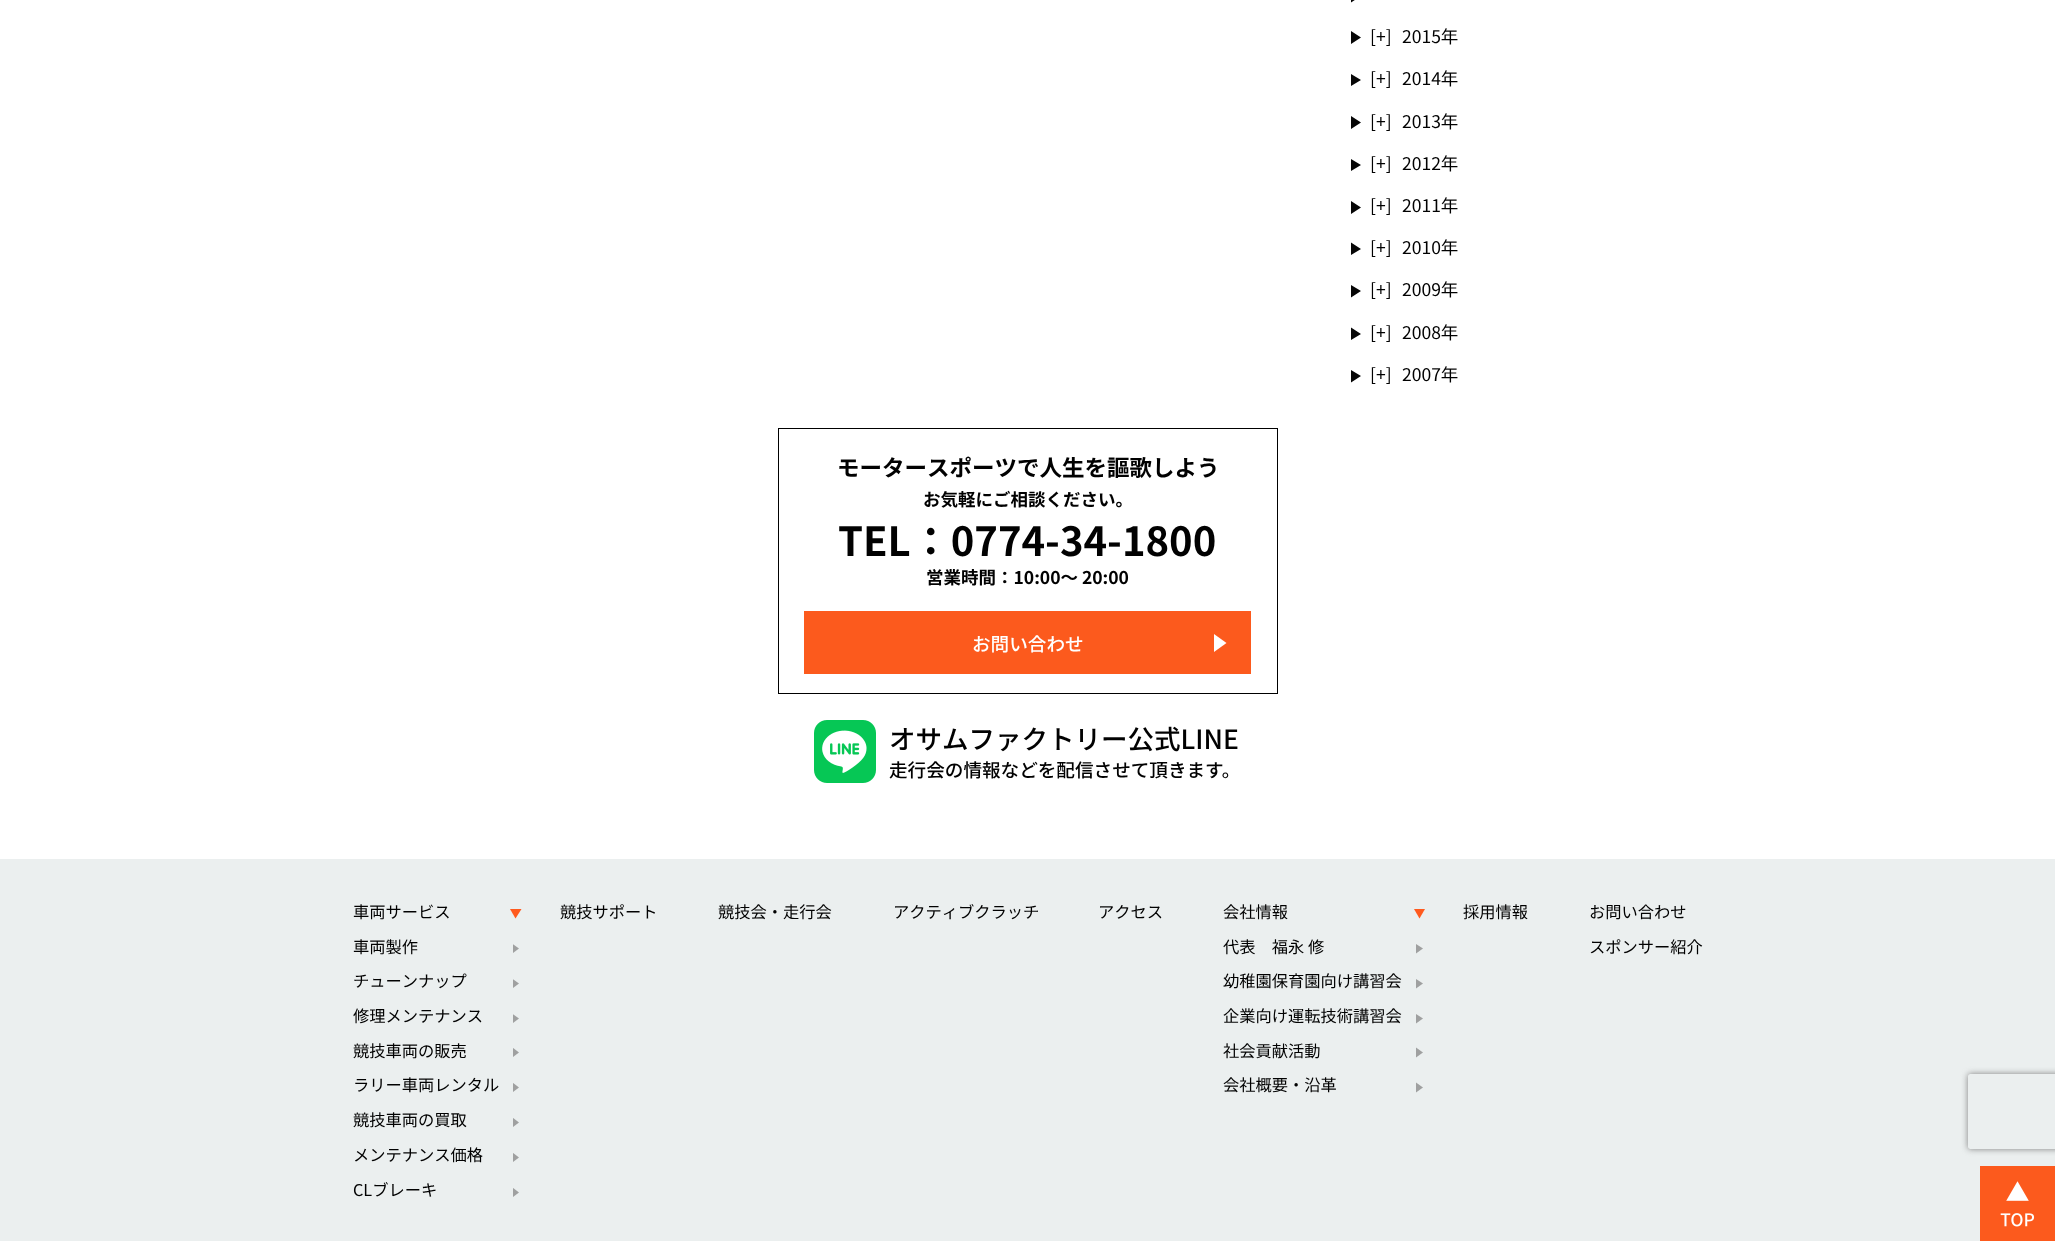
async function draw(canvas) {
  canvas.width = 2055
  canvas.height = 1241
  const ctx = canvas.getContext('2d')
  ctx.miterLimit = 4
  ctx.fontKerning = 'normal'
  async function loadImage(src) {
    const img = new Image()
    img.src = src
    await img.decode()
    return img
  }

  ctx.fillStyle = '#fff'
  ctx.fillRect(0, 0, 2055, 1241)
  ctx.fillStyle = '#060606'
  ctx.beginPath()
  ctx.moveTo(1361, -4)
  ctx.lineTo(1351, 2.5)
  ctx.lineTo(1351, -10)
  ctx.closePath()
  ctx.moveTo(1361, 37.5)
  ctx.lineTo(1351, 44)
  ctx.lineTo(1351, 31)
  ctx.closePath()
  ctx.fill()
  ctx.font = '17.5px Noto Sans JP'
  ctx.fillStyle = '#010101'
  ctx.fillText('[+]', 1370, 43)
  ctx.fillText('2015年', 1402, 43)
  ctx.fillStyle = '#060606'
  ctx.beginPath()
  ctx.moveTo(1361, 80)
  ctx.lineTo(1351, 86)
  ctx.lineTo(1351, 74)
  ctx.closePath()
  ctx.moveTo(1361, 122.5)
  ctx.lineTo(1351, 129)
  ctx.lineTo(1351, 116)
  ctx.closePath()
  ctx.fill()
  ctx.fillStyle = '#010101'
  ctx.fillText('[+]', 1370, 85)
  ctx.fillText('2014年', 1402, 85)
  ctx.fillText('[+]', 1370, 128)
  ctx.fillText('2013年', 1402, 128)
  ctx.fillStyle = '#060606'
  ctx.beginPath()
  ctx.moveTo(1361, 165)
  ctx.lineTo(1351, 171)
  ctx.lineTo(1351, 159)
  ctx.closePath()
  ctx.moveTo(1361, 207.5)
  ctx.lineTo(1351, 214)
  ctx.lineTo(1351, 201)
  ctx.closePath()
  ctx.fill()
  ctx.fillStyle = '#010101'
  ctx.fillText('[+]', 1370, 170)
  ctx.fillText('2012年', 1402, 170)
  ctx.fillText('[+]', 1370, 212)
  ctx.fillText('2011年', 1402, 212)
  ctx.fillStyle = '#060606'
  ctx.beginPath()
  ctx.moveTo(1361, 249)
  ctx.lineTo(1351, 255)
  ctx.lineTo(1351, 242.5)
  ctx.closePath()
  ctx.moveTo(1361, 291)
  ctx.lineTo(1351, 297.5)
  ctx.lineTo(1351, 285)
  ctx.closePath()
  ctx.fill()
  ctx.fillStyle = '#010101'
  ctx.fillText('[+]', 1370, 254)
  ctx.fillText('2010年', 1402, 254)
  ctx.fillText('[+]', 1370, 296)
  ctx.fillText('2009年', 1402, 296)
  ctx.fillStyle = '#060606'
  ctx.beginPath()
  ctx.moveTo(1361, 334)
  ctx.lineTo(1351, 340)
  ctx.lineTo(1351, 327.5)
  ctx.closePath()
  ctx.moveTo(1361, 376)
  ctx.lineTo(1351, 382.5)
  ctx.lineTo(1351, 370)
  ctx.closePath()
  ctx.fill()
  ctx.fillStyle = '#010101'
  ctx.fillText('[+]', 1370, 339)
  ctx.fillText('2008年', 1402, 339)
  ctx.fillText('[+]', 1370, 381)
  ctx.fillText('2007年', 1402, 381)
  ctx.strokeStyle = '#000'
  ctx.strokeRect(778.5, 428.5, 499, 265)
  ctx.font = 'bold 22.5px Noto Sans JP'
  ctx.fillText('モータースポーツで人生を謳歌しよう', 837, 476)
  ctx.font = 'bold 17.5px Noto Sans JP'
  ctx.fillText('お気軽にご相談ください。', 923, 506)
  ctx.font = 'bold 40px Noto Sans JP'
  ctx.fillText('TEL：0774-34-1800', 838, 556)
  ctx.font = 'bold 17.5px Noto Sans JP'
  ctx.fillText('営業時間：10:00～ 20:00', 926, 584)
  ctx.fillStyle = '#fc5a1d'
  ctx.fillRect(804, 611, 447, 63)
  ctx.font = '500 18.6px Noto Sans JP'
  ctx.fillStyle = '#fff'
  ctx.fillText('お問い合わせ', 972, 651)
  ctx.beginPath()
  ctx.moveTo(1214, 634)
  ctx.lineTo(1214, 652)
  ctx.lineTo(1226.5, 643)
  ctx.closePath()
  ctx.fill()
  ctx.drawImage(await loadImage('image0.png'), 814, 720, 62, 63)
  ctx.font = '500 26.5px Noto Sans JP'
  ctx.fillStyle = '#010101'
  ctx.fillText('オサムファクトリー公式LINE', 889, 749)
  ctx.font = '500 18.6px Noto Sans JP'
  ctx.fillText('走行会の情報などを配信させて頂きます。', 889, 777)
  ctx.fillStyle = '#ebefef'
  ctx.fillRect(0, 859, 2055, 382)
  ctx.font = '16.25px Noto Sans JP'
  ctx.fillStyle = '#010101'
  ctx.fillText('車両サービス', 353, 918)
  ctx.fillStyle = '#ff5a1e'
  ctx.beginPath()
  ctx.moveTo(510, 909)
  ctx.lineTo(515.5, 918.5)
  ctx.lineTo(521.5, 909)
  ctx.closePath()
  ctx.fill()
  ctx.fillStyle = '#010101'
  ctx.fillText('車両製作', 353, 953)
  ctx.save()
  ctx.beginPath()
  ctx.rect(513, 944, 6, 10)
  ctx.clip()
  ctx.fillStyle = '#9fa0a0'
  ctx.beginPath()
  ctx.moveTo(512.5, 944)
  ctx.lineTo(512.5, 953.5)
  ctx.lineTo(519, 948.5)
  ctx.closePath()
  ctx.fill()
  ctx.restore()
  ctx.fillText('チューンナップ', 353, 987)
  ctx.save()
  ctx.beginPath()
  ctx.rect(513, 979, 6, 10)
  ctx.clip()
  ctx.fillStyle = '#9fa0a0'
  ctx.beginPath()
  ctx.moveTo(512.5, 979)
  ctx.lineTo(512.5, 988.5)
  ctx.lineTo(519, 983.5)
  ctx.closePath()
  ctx.fill()
  ctx.restore()
  ctx.fillText('修理メンテナンス', 353, 1022)
  ctx.save()
  ctx.beginPath()
  ctx.rect(513, 1014, 6, 10)
  ctx.clip()
  ctx.fillStyle = '#9fa0a0'
  ctx.beginPath()
  ctx.moveTo(512.5, 1014)
  ctx.lineTo(512.5, 1023.5)
  ctx.lineTo(519, 1018.5)
  ctx.closePath()
  ctx.fill()
  ctx.restore()
  ctx.fillText('競技車両の販売', 353, 1057)
  ctx.save()
  ctx.beginPath()
  ctx.rect(513, 1048, 6, 10)
  ctx.clip()
  ctx.fillStyle = '#9fa0a0'
  ctx.beginPath()
  ctx.moveTo(512.5, 1047.5)
  ctx.lineTo(512.5, 1057.5)
  ctx.lineTo(519, 1052.5)
  ctx.closePath()
  ctx.fill()
  ctx.restore()
  ctx.fillText('ラリー車両レンタル', 353, 1091)
  ctx.save()
  ctx.beginPath()
  ctx.rect(513, 1083, 6, 10)
  ctx.clip()
  ctx.fillStyle = '#9fa0a0'
  ctx.beginPath()
  ctx.moveTo(512.5, 1082.5)
  ctx.lineTo(512.5, 1092.5)
  ctx.lineTo(519, 1087.5)
  ctx.closePath()
  ctx.fill()
  ctx.restore()
  ctx.fillText('競技車両の買取', 353, 1126)
  ctx.save()
  ctx.beginPath()
  ctx.rect(513, 1118, 6, 10)
  ctx.clip()
  ctx.fillStyle = '#9fa0a0'
  ctx.beginPath()
  ctx.moveTo(512.5, 1117.5)
  ctx.lineTo(512.5, 1127.5)
  ctx.lineTo(519, 1122.5)
  ctx.closePath()
  ctx.fill()
  ctx.restore()
  ctx.fillText('メンテナンス価格', 353, 1161)
  ctx.save()
  ctx.beginPath()
  ctx.rect(513, 1153, 6, 10)
  ctx.clip()
  ctx.fillStyle = '#9fa0a0'
  ctx.beginPath()
  ctx.moveTo(512.5, 1152.5)
  ctx.lineTo(512.5, 1162.5)
  ctx.lineTo(519, 1157.5)
  ctx.closePath()
  ctx.fill()
  ctx.restore()
  ctx.fillText('CLブレーキ', 353, 1196)
  ctx.save()
  ctx.beginPath()
  ctx.rect(513, 1188, 6, 10)
  ctx.clip()
  ctx.fillStyle = '#9fa0a0'
  ctx.beginPath()
  ctx.moveTo(512.5, 1187.5)
  ctx.lineTo(512.5, 1197.5)
  ctx.lineTo(519, 1192.5)
  ctx.closePath()
  ctx.fill()
  ctx.restore()
  ctx.fillText('競技サポート', 560, 918)
  ctx.fillText('競技会・走行会', 718, 918)
  ctx.fillText('アクティブクラッチ', 893, 918)
  ctx.fillText('アクセス', 1098, 918)
  ctx.fillText('会社情報', 1223, 918)
  ctx.fillStyle = '#ff5a1e'
  ctx.beginPath()
  ctx.moveTo(1414, 909)
  ctx.lineTo(1419.5, 918.5)
  ctx.lineTo(1425, 909)
  ctx.closePath()
  ctx.fill()
  ctx.fillStyle = '#010101'
  ctx.fillText('代表　福永 修', 1223, 953)
  ctx.fillStyle = '#9fa0a0'
  ctx.beginPath()
  ctx.moveTo(1416, 944)
  ctx.lineTo(1416, 953.5)
  ctx.lineTo(1423, 948.5)
  ctx.closePath()
  ctx.fill()
  ctx.fillStyle = '#010101'
  ctx.fillText('幼稚園保育園向け講習会', 1223, 987)
  ctx.fillStyle = '#9fa0a0'
  ctx.beginPath()
  ctx.moveTo(1416, 979)
  ctx.lineTo(1416, 988.5)
  ctx.lineTo(1423, 983.5)
  ctx.closePath()
  ctx.fill()
  ctx.fillStyle = '#010101'
  ctx.fillText('企業向け運転技術講習会', 1223, 1022)
  ctx.fillStyle = '#9fa0a0'
  ctx.beginPath()
  ctx.moveTo(1416, 1014)
  ctx.lineTo(1416, 1023.5)
  ctx.lineTo(1423, 1018.5)
  ctx.closePath()
  ctx.fill()
  ctx.fillStyle = '#010101'
  ctx.fillText('社会貢献活動', 1223, 1057)
  ctx.fillStyle = '#9fa0a0'
  ctx.beginPath()
  ctx.moveTo(1416, 1047.5)
  ctx.lineTo(1416, 1057.5)
  ctx.lineTo(1423, 1052.5)
  ctx.closePath()
  ctx.fill()
  ctx.fillStyle = '#010101'
  ctx.fillText('会社概要・沿革', 1223, 1091)
  ctx.fillStyle = '#9fa0a0'
  ctx.beginPath()
  ctx.moveTo(1416, 1082.5)
  ctx.lineTo(1416, 1092.5)
  ctx.lineTo(1423, 1087.5)
  ctx.closePath()
  ctx.fill()
  ctx.fillStyle = '#010101'
  ctx.fillText('採用情報', 1463, 918)
  ctx.fillText('お問い合わせ', 1589, 918)
  ctx.fillText('スポンサー紹介', 1589, 953)
  ctx.drawImage(await loadImage('image1.png'), 1980, 1166, 75, 75)
  ctx.save()
  ctx.beginPath()
  ctx.moveTo(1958, 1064)
  ctx.lineTo(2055, 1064)
  ctx.lineTo(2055, 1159)
  ctx.lineTo(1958, 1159)
  ctx.closePath()
  ctx.moveTo(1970.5, 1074)
  ctx.lineTo(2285.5, 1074)
  ctx.bezierCurveTo(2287, 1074, 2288, 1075, 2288, 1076.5)
  ctx.lineTo(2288, 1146.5)
  ctx.bezierCurveTo(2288, 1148, 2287, 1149, 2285.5, 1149)
  ctx.lineTo(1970.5, 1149)
  ctx.bezierCurveTo(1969, 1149, 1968, 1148, 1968, 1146.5)
  ctx.lineTo(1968, 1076.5)
  ctx.bezierCurveTo(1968, 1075, 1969, 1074, 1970.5, 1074)
  ctx.closePath()
  ctx.clip('evenodd')
  ctx.fillStyle = '#808080'
  ctx.filter = 'blur(3px)'
  ctx.beginPath()
  ctx.roundRect(1968, 1074, 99, 75, 2.5)
  ctx.fill()
  ctx.filter = 'none'
  ctx.restore()
}

draw(document.querySelector('canvas'))
